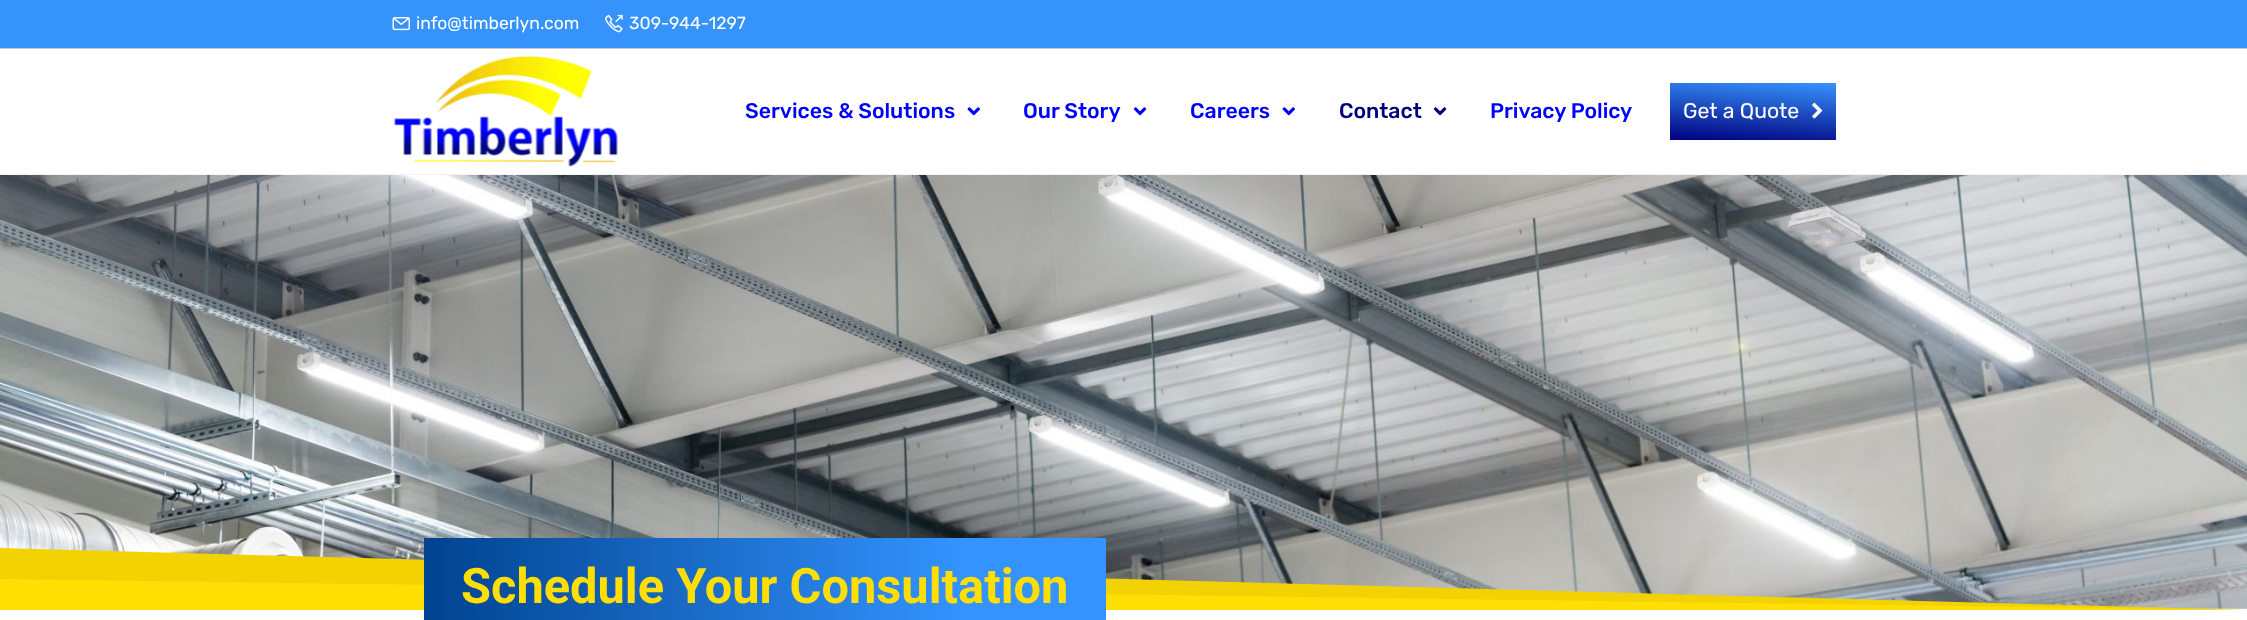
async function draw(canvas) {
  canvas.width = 2247
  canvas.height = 620
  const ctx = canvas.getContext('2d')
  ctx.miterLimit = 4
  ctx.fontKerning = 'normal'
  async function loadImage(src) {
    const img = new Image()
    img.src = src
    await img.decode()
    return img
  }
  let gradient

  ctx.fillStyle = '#fff'
  ctx.fillRect(0, 0, 2247, 620)
  ctx.fillStyle = '#ccc'
  ctx.fillRect(0, 48, 2247, 1)
  ctx.fillStyle = '#3693fc'
  ctx.fillRect(0, 0, 2247, 48)
  ctx.drawImage(await loadImage('image0.png'), 392, 17, 18, 14)
  ctx.font = '17.5px Rubik'
  ctx.fillStyle = '#fff'
  ctx.fillText('info@timberlyn.com', 416, 29)
  ctx.drawImage(await loadImage('image1.png'), 605, 14, 18, 19)
  ctx.fillText('309-944-1297', 629, 29)
  ctx.drawImage(await loadImage('image2.png'), 393, 56, 225, 111)
  ctx.font = '500 21.25px Rubik'
  ctx.fillStyle = '#0000fe'
  ctx.fillText('Services & Solutions', 745, 118)
  ctx.drawImage(await loadImage('image3.png'), 967, 107, 13, 9)
  ctx.fillText('Our Story', 1023, 118)
  ctx.drawImage(await loadImage('image4.png'), 1133, 107, 14, 9)
  ctx.fillText('Careers', 1190, 118)
  ctx.drawImage(await loadImage('image3.png'), 1282, 107, 13, 9)
  ctx.fillStyle = '#00007f'
  ctx.fillText('Contact', 1339, 118)
  ctx.drawImage(await loadImage('image5.png'), 1433, 107, 14, 9)
  ctx.fillStyle = '#0000fe'
  ctx.fillText('Privacy Policy', 1490, 118)
  gradient = ctx.createLinearGradient(1751, 146, 1756, 77)
  gradient.addColorStop(0, '#00007f')
  gradient.addColorStop(1, '#3693fc')
  ctx.fillStyle = gradient
  ctx.fillRect(1670, 83, 166, 57)
  ctx.font = '21.25px Rubik'
  ctx.fillStyle = '#fff'
  ctx.fillText('Get a Quote', 1683, 118)
  ctx.drawImage(await loadImage('image6.png'), 1812, 102, 11, 17)
  ctx.drawImage(await loadImage('image7.png'), 0, 174, 2247, 435)
  ctx.drawImage(await loadImage('image8.png'), 0, 175, 2247, 434)
  ctx.fillStyle = '#ffde03'
  ctx.beginPath()
  ctx.moveTo(0, 610)
  ctx.lineTo(0, 548)
  ctx.lineTo(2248, 610)
  ctx.fill()
  ctx.fillStyle = '#0000000d'
  ctx.beginPath()
  ctx.moveTo(0, 579)
  ctx.lineTo(0, 548)
  ctx.lineTo(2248, 610)
  ctx.fill()
  gradient = ctx.createLinearGradient(424, 586, 1106, 586)
  gradient.addColorStop(0, '#00438f')
  gradient.addColorStop(0.79, '#3493ff')
  ctx.fillStyle = gradient
  ctx.fillRect(424, 538, 682, 82)
  ctx.font = 'bold 48.75px Roboto'
  ctx.fillStyle = '#ffde03'
  ctx.fillText('Schedule Your Consultation', 461, 603)
}

draw(document.querySelector('canvas'))
